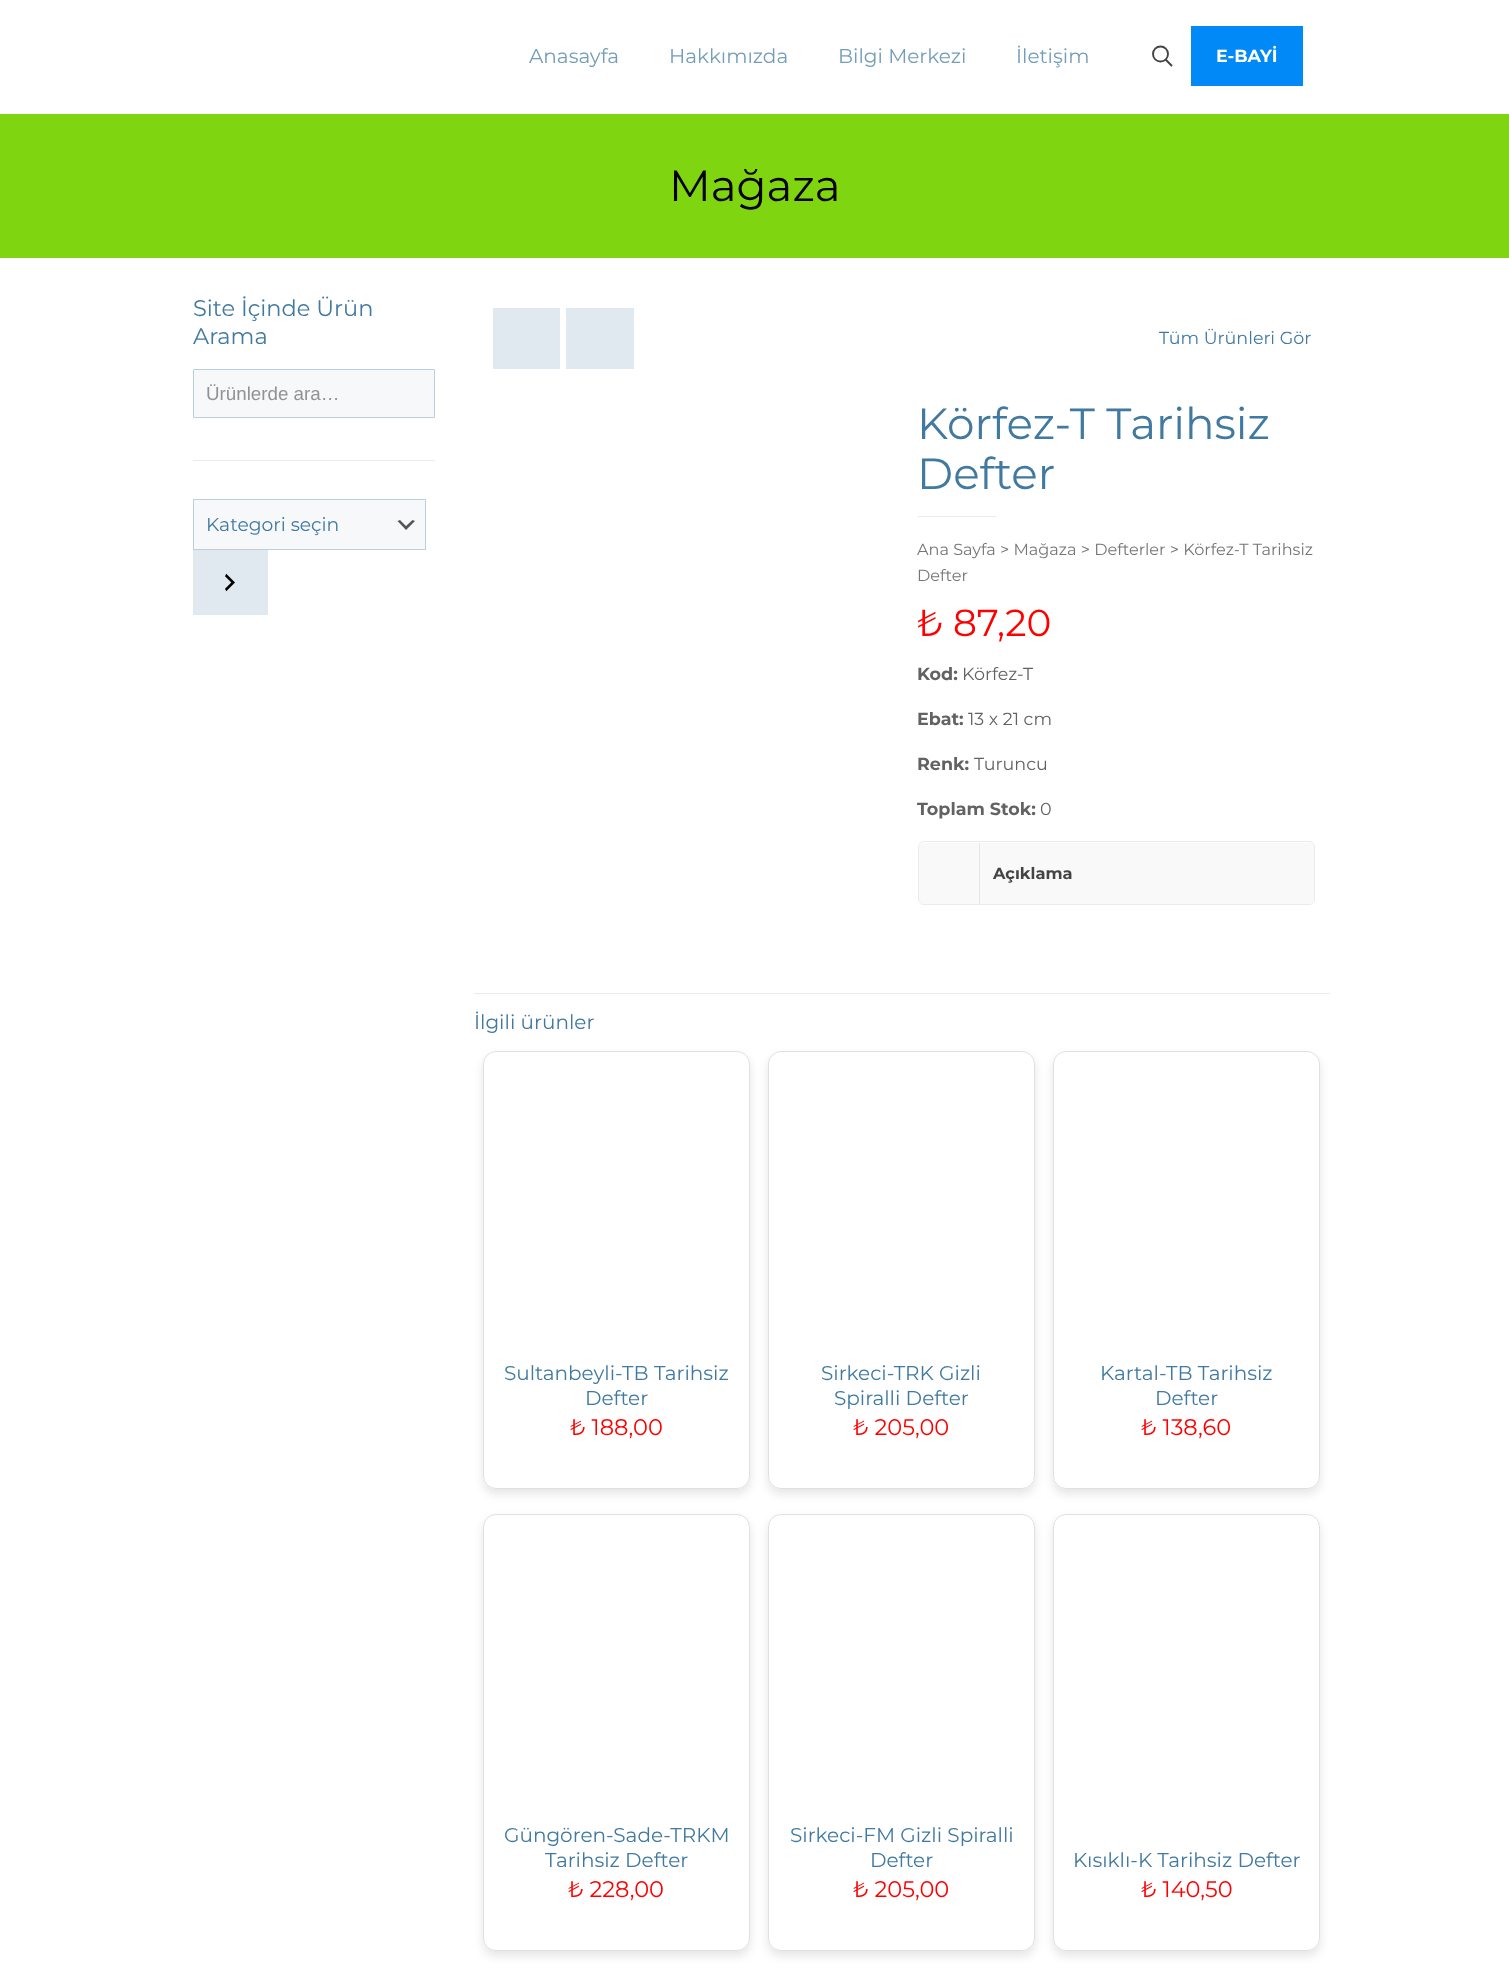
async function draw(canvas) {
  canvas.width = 1509
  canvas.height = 1971
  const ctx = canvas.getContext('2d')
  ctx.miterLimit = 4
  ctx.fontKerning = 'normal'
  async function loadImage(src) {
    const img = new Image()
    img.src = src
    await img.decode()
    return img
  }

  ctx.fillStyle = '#fff'
  ctx.fillRect(0, 0, 1509, 1971)
  ctx.font = '20px Montserrat'
  ctx.fillStyle = '#739db9'
  ctx.fillText('Anasayfa', 529, 63)
  ctx.fillText('Hakkımızda', 669, 63)
  ctx.fillText('Bilgi Merkezi', 838, 63)
  ctx.fillText('İletişim', 1016, 63)
  ctx.beginPath()
  ctx.arc(1160.5, 54, 7.5, 0, 2 * Math.PI)
  ctx.strokeStyle = '#444'
  ctx.lineWidth = 1.9
  ctx.stroke()
  ctx.beginPath()
  ctx.moveTo(1165.5, 59.5)
  ctx.lineTo(1172, 66)
  ctx.stroke()
  ctx.fillStyle = '#0089f7'
  ctx.fillRect(1191, 26, 112, 60)
  ctx.font = 'bold 17.5px Montserrat'
  ctx.fillStyle = '#fff'
  ctx.fillText('E-BAYİ', 1216, 62)
  ctx.fillStyle = '#7fd510'
  ctx.fillRect(0, 114, 1509, 144)
  ctx.font = '43.75px Montserrat'
  ctx.fillStyle = '#000'
  ctx.fillText('Mağaza', 669, 201)
  ctx.font = '22.5px Montserrat'
  ctx.fillStyle = '#4179a0'
  ctx.fillText('Site İçinde Ürün', 193, 316)
  ctx.fillText('Arama', 193, 344)
  ctx.fillStyle = '#f7f8f9'
  ctx.beginPath()
  ctx.rect(193.5, 369.5, 241, 48)
  ctx.fill()
  ctx.strokeStyle = '#becfdc'
  ctx.lineWidth = 1
  ctx.stroke()
  ctx.font = '18.75px Liberation Sans'
  ctx.fillStyle = '#929292'
  ctx.fillText('Ürünlerde ara…', 206, 400)
  ctx.fillStyle = '#ebebeb'
  ctx.fillRect(193, 460, 242, 1)
  ctx.fillStyle = '#f7f8f9'
  ctx.fillRect(194, 500, 231, 49)
  ctx.fillStyle = '#555'
  ctx.beginPath()
  ctx.moveTo(400, 520)
  ctx.lineTo(406, 526)
  ctx.lineTo(412.5, 520)
  ctx.lineTo(415, 521)
  ctx.lineTo(406, 530)
  ctx.lineTo(397.5, 521)
  ctx.closePath()
  ctx.fill()
  ctx.strokeRect(193.5, 499.5, 232, 50)
  ctx.font = '18.75px Montserrat'
  ctx.fillStyle = '#4179a0'
  ctx.fillText('Kategori seçin', 206, 531)
  ctx.fillStyle = '#e1e9f0'
  ctx.fillRect(193, 550, 75, 65)
  ctx.drawImage(await loadImage('image0.png'), 225, 573, 10, 19)
  ctx.fillRect(493, 308, 67, 61)
  ctx.fillRect(566, 308, 68, 61)
  ctx.font = '17.5px Montserrat'
  ctx.fillStyle = '#4179a0'
  ctx.fillText('Tüm Ürünleri Gör', 1159, 344)
  ctx.font = '43.75px Montserrat'
  ctx.fillText('Körfez-T Tarihsiz', 917, 439)
  ctx.fillText('Defter', 917, 489)
  ctx.fillStyle = '#ebebeb'
  ctx.fillRect(918, 516, 78, 1)
  ctx.font = '16.1px Montserrat'
  ctx.fillStyle = '#767676'
  ctx.fillText('Ana Sayfa > Mağaza > Defterler > Körfez-T Tarihsiz', 917, 555)
  ctx.fillText('Defter', 917, 581)
  ctx.font = '37.5px Montserrat'
  ctx.fillStyle = '#f00'
  ctx.fillText('₺ 87,20', 917, 636)
  ctx.font = 'bold 17.5px Montserrat'
  ctx.fillStyle = '#626262'
  ctx.fillText('Kod:', 917, 680)
  ctx.font = '17.5px Montserrat'
  ctx.fillText('Körfez-T', 962, 680)
  ctx.font = 'bold 17.5px Montserrat'
  ctx.fillText('Ebat:', 917, 725)
  ctx.font = '17.5px Montserrat'
  ctx.fillText('13 x 21 cm', 968, 725)
  ctx.font = 'bold 17.5px Montserrat'
  ctx.fillText('Renk:', 917, 770)
  ctx.font = '17.5px Montserrat'
  ctx.fillText('Turuncu', 974, 770)
  ctx.font = 'bold 17.5px Montserrat'
  ctx.fillText('Toplam Stok:', 917, 815)
  ctx.font = '17.5px Montserrat'
  ctx.fillText('0', 1040, 815)
  ctx.beginPath()
  ctx.roundRect(918.5, 841.5, 396, 63, 5.5)
  ctx.strokeStyle = '#ebebeb'
  ctx.stroke()
  ctx.fillStyle = '#f9f9f9'
  ctx.beginPath()
  ctx.roundRect(919, 843, 395, 61, 5)
  ctx.fill()
  ctx.fillStyle = '#e5e5e5'
  ctx.fillRect(979, 843, 1, 61)
  ctx.font = 'bold 16.25px Montserrat'
  ctx.fillStyle = '#444'
  ctx.fillText('Açıklama', 993, 879)
  ctx.fillStyle = '#ebebeb'
  ctx.fillRect(474, 993, 856, 1)
  ctx.font = '20px Montserrat'
  ctx.fillStyle = '#4179a0'
  ctx.fillText('İlgili ürünler', 474, 1029)
  ctx.save()
  ctx.beginPath()
  ctx.moveTo(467, 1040)
  ctx.lineTo(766, 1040)
  ctx.lineTo(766, 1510)
  ctx.lineTo(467, 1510)
  ctx.closePath()
  ctx.moveTo(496, 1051)
  ctx.lineTo(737, 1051)
  ctx.bezierCurveTo(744, 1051, 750, 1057, 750, 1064)
  ctx.lineTo(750, 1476)
  ctx.bezierCurveTo(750, 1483, 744, 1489, 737, 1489)
  ctx.lineTo(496, 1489)
  ctx.bezierCurveTo(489, 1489, 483, 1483, 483, 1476)
  ctx.lineTo(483, 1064)
  ctx.bezierCurveTo(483, 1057, 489, 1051, 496, 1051)
  ctx.closePath()
  ctx.clip('evenodd')
  ctx.fillStyle = '#0000001a'
  ctx.filter = 'blur(5px)'
  ctx.beginPath()
  ctx.roundRect(483, 1056, 267, 438, 13)
  ctx.fill()
  ctx.filter = 'none'
  ctx.restore()
  ctx.beginPath()
  ctx.roundRect(483.5, 1051.5, 266, 437, 12.5)
  ctx.strokeStyle = '#e0e0e0'
  ctx.stroke()
  ctx.fillText('Sultanbeyli-TB Tarihsiz', 504, 1380)
  ctx.fillText('Defter', 585, 1405)
  ctx.font = '22.5px Montserrat'
  ctx.fillStyle = '#f00'
  ctx.fillText('₺ 188,00', 570, 1435)
  ctx.save()
  ctx.beginPath()
  ctx.moveTo(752, 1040)
  ctx.lineTo(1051, 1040)
  ctx.lineTo(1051, 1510)
  ctx.lineTo(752, 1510)
  ctx.closePath()
  ctx.moveTo(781, 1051)
  ctx.lineTo(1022, 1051)
  ctx.bezierCurveTo(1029, 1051, 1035, 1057, 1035, 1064)
  ctx.lineTo(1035, 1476)
  ctx.bezierCurveTo(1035, 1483, 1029, 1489, 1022, 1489)
  ctx.lineTo(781, 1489)
  ctx.bezierCurveTo(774, 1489, 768, 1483, 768, 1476)
  ctx.lineTo(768, 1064)
  ctx.bezierCurveTo(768, 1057, 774, 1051, 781, 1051)
  ctx.closePath()
  ctx.clip('evenodd')
  ctx.fillStyle = '#0000001a'
  ctx.filter = 'blur(5px)'
  ctx.beginPath()
  ctx.roundRect(768, 1056, 267, 438, 13)
  ctx.fill()
  ctx.filter = 'none'
  ctx.restore()
  ctx.beginPath()
  ctx.roundRect(768.5, 1051.5, 266, 437, 12.5)
  ctx.stroke()
  ctx.font = '20px Montserrat'
  ctx.fillStyle = '#4179a0'
  ctx.fillText('Sirkeci-TRK Gizli', 821, 1380)
  ctx.fillText('Spiralli Defter', 834, 1405)
  ctx.font = '22.5px Montserrat'
  ctx.fillStyle = '#f00'
  ctx.fillText('₺ 205,00', 853, 1435)
  ctx.save()
  ctx.beginPath()
  ctx.moveTo(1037, 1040)
  ctx.lineTo(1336, 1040)
  ctx.lineTo(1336, 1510)
  ctx.lineTo(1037, 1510)
  ctx.closePath()
  ctx.moveTo(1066, 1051)
  ctx.lineTo(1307, 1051)
  ctx.bezierCurveTo(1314, 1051, 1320, 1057, 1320, 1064)
  ctx.lineTo(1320, 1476)
  ctx.bezierCurveTo(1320, 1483, 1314, 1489, 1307, 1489)
  ctx.lineTo(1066, 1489)
  ctx.bezierCurveTo(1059, 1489, 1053, 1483, 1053, 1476)
  ctx.lineTo(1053, 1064)
  ctx.bezierCurveTo(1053, 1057, 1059, 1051, 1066, 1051)
  ctx.closePath()
  ctx.clip('evenodd')
  ctx.fillStyle = '#0000001a'
  ctx.filter = 'blur(5px)'
  ctx.beginPath()
  ctx.roundRect(1053, 1056, 267, 438, 13)
  ctx.fill()
  ctx.filter = 'none'
  ctx.restore()
  ctx.beginPath()
  ctx.roundRect(1053.5, 1051.5, 266, 437, 12.5)
  ctx.stroke()
  ctx.font = '20px Montserrat'
  ctx.fillStyle = '#4179a0'
  ctx.fillText('Kartal-TB Tarihsiz', 1100, 1380)
  ctx.fillText('Defter', 1155, 1405)
  ctx.font = '22.5px Montserrat'
  ctx.fillStyle = '#f00'
  ctx.fillText('₺ 138,60', 1141, 1435)
  ctx.save()
  ctx.beginPath()
  ctx.moveTo(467, 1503)
  ctx.lineTo(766, 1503)
  ctx.lineTo(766, 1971)
  ctx.lineTo(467, 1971)
  ctx.closePath()
  ctx.moveTo(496, 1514)
  ctx.lineTo(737, 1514)
  ctx.bezierCurveTo(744, 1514, 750, 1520, 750, 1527)
  ctx.lineTo(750, 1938)
  ctx.bezierCurveTo(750, 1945, 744, 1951, 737, 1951)
  ctx.lineTo(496, 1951)
  ctx.bezierCurveTo(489, 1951, 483, 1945, 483, 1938)
  ctx.lineTo(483, 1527)
  ctx.bezierCurveTo(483, 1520, 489, 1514, 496, 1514)
  ctx.closePath()
  ctx.clip('evenodd')
  ctx.fillStyle = '#0000001a'
  ctx.filter = 'blur(5px)'
  ctx.beginPath()
  ctx.roundRect(483, 1519, 267, 437, 13)
  ctx.fill()
  ctx.filter = 'none'
  ctx.restore()
  ctx.beginPath()
  ctx.roundRect(483.5, 1514.5, 266, 436, 12.5)
  ctx.stroke()
  ctx.font = '20px Montserrat'
  ctx.fillStyle = '#4179a0'
  ctx.fillText('Güngören-Sade-TRKM', 504, 1842)
  ctx.fillText('Tarihsiz Defter', 545, 1867)
  ctx.font = '22.5px Montserrat'
  ctx.fillStyle = '#f00'
  ctx.fillText('₺ 228,00', 568, 1897)
  ctx.save()
  ctx.beginPath()
  ctx.moveTo(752, 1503)
  ctx.lineTo(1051, 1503)
  ctx.lineTo(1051, 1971)
  ctx.lineTo(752, 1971)
  ctx.closePath()
  ctx.moveTo(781, 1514)
  ctx.lineTo(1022, 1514)
  ctx.bezierCurveTo(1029, 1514, 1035, 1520, 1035, 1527)
  ctx.lineTo(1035, 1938)
  ctx.bezierCurveTo(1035, 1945, 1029, 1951, 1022, 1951)
  ctx.lineTo(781, 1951)
  ctx.bezierCurveTo(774, 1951, 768, 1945, 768, 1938)
  ctx.lineTo(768, 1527)
  ctx.bezierCurveTo(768, 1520, 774, 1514, 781, 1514)
  ctx.closePath()
  ctx.clip('evenodd')
  ctx.fillStyle = '#0000001a'
  ctx.filter = 'blur(5px)'
  ctx.beginPath()
  ctx.roundRect(768, 1519, 267, 437, 13)
  ctx.fill()
  ctx.filter = 'none'
  ctx.restore()
  ctx.beginPath()
  ctx.roundRect(768.5, 1514.5, 266, 436, 12.5)
  ctx.stroke()
  ctx.font = '20px Montserrat'
  ctx.fillStyle = '#4179a0'
  ctx.fillText('Sirkeci-FM Gizli Spiralli', 790, 1842)
  ctx.fillText('Defter', 870, 1867)
  ctx.font = '22.5px Montserrat'
  ctx.fillStyle = '#f00'
  ctx.fillText('₺ 205,00', 853, 1897)
  ctx.save()
  ctx.beginPath()
  ctx.moveTo(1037, 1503)
  ctx.lineTo(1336, 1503)
  ctx.lineTo(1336, 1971)
  ctx.lineTo(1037, 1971)
  ctx.closePath()
  ctx.moveTo(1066, 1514)
  ctx.lineTo(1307, 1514)
  ctx.bezierCurveTo(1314, 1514, 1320, 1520, 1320, 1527)
  ctx.lineTo(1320, 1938)
  ctx.bezierCurveTo(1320, 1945, 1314, 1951, 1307, 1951)
  ctx.lineTo(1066, 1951)
  ctx.bezierCurveTo(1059, 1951, 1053, 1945, 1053, 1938)
  ctx.lineTo(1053, 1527)
  ctx.bezierCurveTo(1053, 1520, 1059, 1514, 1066, 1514)
  ctx.closePath()
  ctx.clip('evenodd')
  ctx.fillStyle = '#0000001a'
  ctx.filter = 'blur(5px)'
  ctx.beginPath()
  ctx.roundRect(1053, 1519, 267, 437, 13)
  ctx.fill()
  ctx.filter = 'none'
  ctx.restore()
  ctx.beginPath()
  ctx.roundRect(1053.5, 1514.5, 266, 436, 12.5)
  ctx.stroke()
  ctx.font = '20px Montserrat'
  ctx.fillStyle = '#4179a0'
  ctx.fillText('Kısıklı-K Tarihsiz Defter', 1073, 1867)
  ctx.font = '22.5px Montserrat'
  ctx.fillStyle = '#f00'
  ctx.fillText('₺ 140,50', 1141, 1897)
}

draw(document.querySelector('canvas'))
